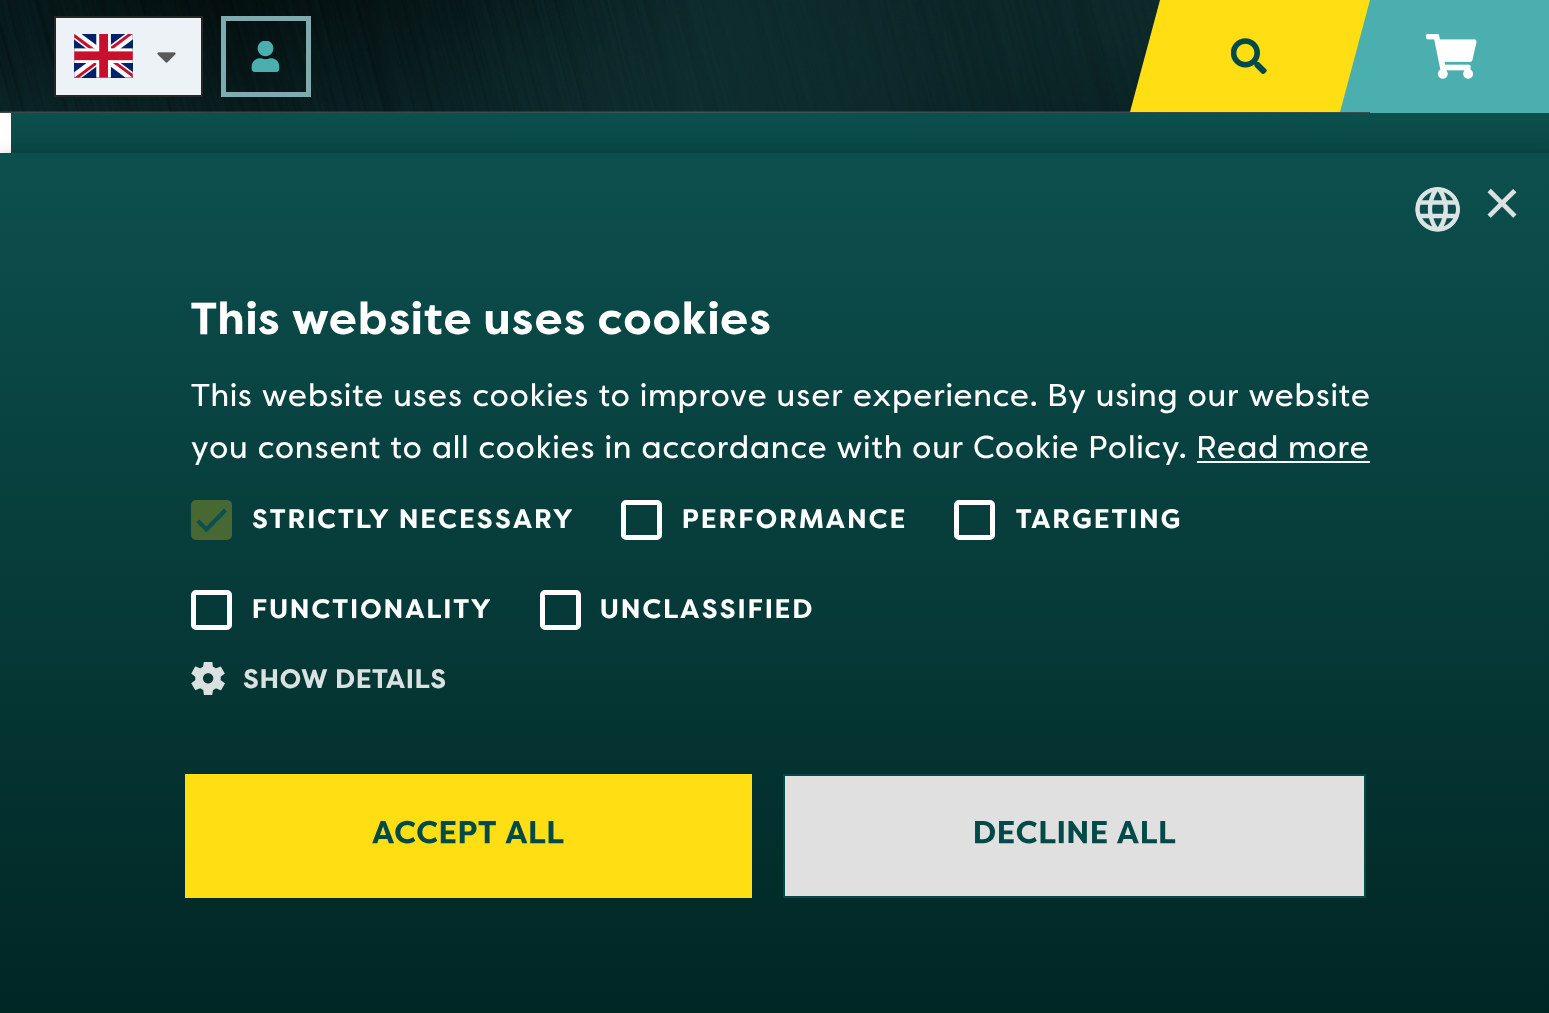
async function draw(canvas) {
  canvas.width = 1549
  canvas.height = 1013
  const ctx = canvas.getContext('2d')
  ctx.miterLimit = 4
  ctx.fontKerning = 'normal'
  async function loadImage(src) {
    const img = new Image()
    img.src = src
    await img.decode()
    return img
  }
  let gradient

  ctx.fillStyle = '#fff'
  ctx.fillRect(0, 0, 1549, 1013)
  ctx.drawImage(await loadImage('image0.png'), 0, 0, 1370, 113)
  ctx.fillStyle = '#edf2f7'
  ctx.beginPath()
  ctx.rect(55, 17, 147, 79)
  ctx.fill()
  ctx.strokeStyle = '#262626'
  ctx.lineWidth = 2
  ctx.stroke()
  ctx.drawImage(await loadImage('image1.png'), 74, 34, 59, 44)
  ctx.drawImage(await loadImage('image2.png'), 157, 52, 19, 11)
  ctx.strokeStyle = '#7fabae'
  ctx.lineWidth = 5
  ctx.strokeRect(223.5, 18.5, 85, 76)
  ctx.drawImage(await loadImage('image3.png'), 251, 41, 29, 31)
  ctx.fillStyle = '#ffde14'
  ctx.beginPath()
  ctx.moveTo(1160, 0)
  ctx.lineTo(1385, 0)
  ctx.lineTo(1355, 112)
  ctx.lineTo(1130, 112)
  ctx.closePath()
  ctx.fill()
  ctx.drawImage(await loadImage('image4.png'), 1231, 38, 36, 36)
  ctx.fillStyle = '#4bafb0'
  ctx.fillRect(1370, 0, 179, 113)
  ctx.beginPath()
  ctx.moveTo(1370, 0)
  ctx.lineTo(1415, 0)
  ctx.lineTo(1385, 112)
  ctx.lineTo(1340, 112)
  ctx.closePath()
  ctx.fill()
  ctx.drawImage(await loadImage('image5.png'), 1425, 34, 52, 45)
  ctx.save()
  ctx.beginPath()
  ctx.rect(0, 113, 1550, 225)
  ctx.clip()
  gradient = ctx.createLinearGradient(1535, 112, 1535, 337)
  gradient.addColorStop(0, '#0c504e')
  gradient.addColorStop(1, '#002624')
  ctx.fillStyle = gradient
  ctx.beginPath()
  ctx.moveTo(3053, 255)
  ctx.lineTo(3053, 112)
  ctx.lineTo(11, 112)
  ctx.lineTo(11, 338)
  ctx.lineTo(516, 338)
  ctx.bezierCurveTo(535, 338, 554, 331, 570, 320)
  ctx.lineTo(634, 271)
  ctx.bezierCurveTo(649, 260, 668, 255, 687, 255)
  ctx.closePath()
  ctx.fill()
  ctx.restore()
  ctx.fillStyle = '#00000059'
  ctx.filter = 'blur(9px)'
  ctx.beginPath()
  ctx.rect(2, 158, 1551, 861)
  ctx.fill()
  ctx.filter = 'none'
  gradient = ctx.createLinearGradient(775, 153, 775, 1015)
  gradient.addColorStop(0, '#0c504e')
  gradient.addColorStop(1, '#002624')
  ctx.fillStyle = gradient
  ctx.fillRect(0, 153, 1549, 860)
  ctx.drawImage(await loadImage('image6.png'), 1415, 187, 45, 45)
  ctx.font = '65px Liberation Sans'
  ctx.fillStyle = '#dae1e1'
  ctx.fillText('×', 1483, 225)
  ctx.letterSpacing = '0.9px'
  ctx.font = 'bold 45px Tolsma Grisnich'
  ctx.fillStyle = '#fff'
  ctx.fillText('This website uses cookies', 191, 334)
  ctx.letterSpacing = '0.67px'
  ctx.font = '31.5px Tolsma Grisnich'
  ctx.fillText('This website uses cookies to improve user experience. By using our website', 191, 406)
  ctx.fillText('you consent to all cookies in accordance with our Cookie Policy. Read more', 191, 458)
  ctx.fillRect(1197, 461, 173, 2)
  ctx.fillStyle = '#476832'
  ctx.beginPath()
  ctx.roundRect(191, 500, 41, 40, 5)
  ctx.fill()
  ctx.beginPath()
  ctx.moveTo(198, 521)
  ctx.lineTo(206.5, 529.5)
  ctx.lineTo(225.5, 510)
  ctx.strokeStyle = '#0c504e'
  ctx.lineWidth = 4.1
  ctx.stroke()
  ctx.letterSpacing = '2.25px'
  ctx.font = 'bold 27px Tolsma Grisnich'
  ctx.fillStyle = '#fff'
  ctx.fillText('STRICTLY NECESSARY', 252, 528)
  ctx.beginPath()
  ctx.roundRect(623.5, 502.5, 36, 35, 2.5)
  ctx.strokeStyle = '#fff'
  ctx.lineWidth = 5
  ctx.stroke()
  ctx.fillText('PERFORMANCE', 682, 528)
  ctx.beginPath()
  ctx.roundRect(956.5, 502.5, 36, 35, 2.5)
  ctx.stroke()
  ctx.fillText('TARGETING', 1016, 528)
  ctx.beginPath()
  ctx.roundRect(193.5, 592.5, 36, 35, 2.5)
  ctx.stroke()
  ctx.fillText('FUNCTIONALITY', 252, 618)
  ctx.beginPath()
  ctx.roundRect(542.5, 592.5, 36, 35, 2.5)
  ctx.stroke()
  ctx.fillText('UNCLASSIFIED', 600, 618)
  ctx.drawImage(await loadImage('image7.png'), 191, 662, 34, 33)
  ctx.letterSpacing = '0.9px'
  ctx.fillStyle = '#dae1e1'
  ctx.fillText('SHOW DETAILS', 243, 688)
  ctx.fillStyle = '#ffde14'
  ctx.fillRect(185, 774, 567, 124)
  ctx.font = 'bold 31.5px Tolsma Grisnich'
  ctx.fillStyle = '#024a48'
  ctx.fillText('ACCEPT ALL', 372, 843)
  ctx.fillStyle = '#e0e0e0'
  ctx.beginPath()
  ctx.rect(784, 775, 581, 122)
  ctx.fill()
  ctx.strokeStyle = '#024a48'
  ctx.lineWidth = 2
  ctx.stroke()
  ctx.fillStyle = '#024a48'
  ctx.fillText('DECLINE ALL', 973, 843)
}

draw(document.querySelector('canvas'))
